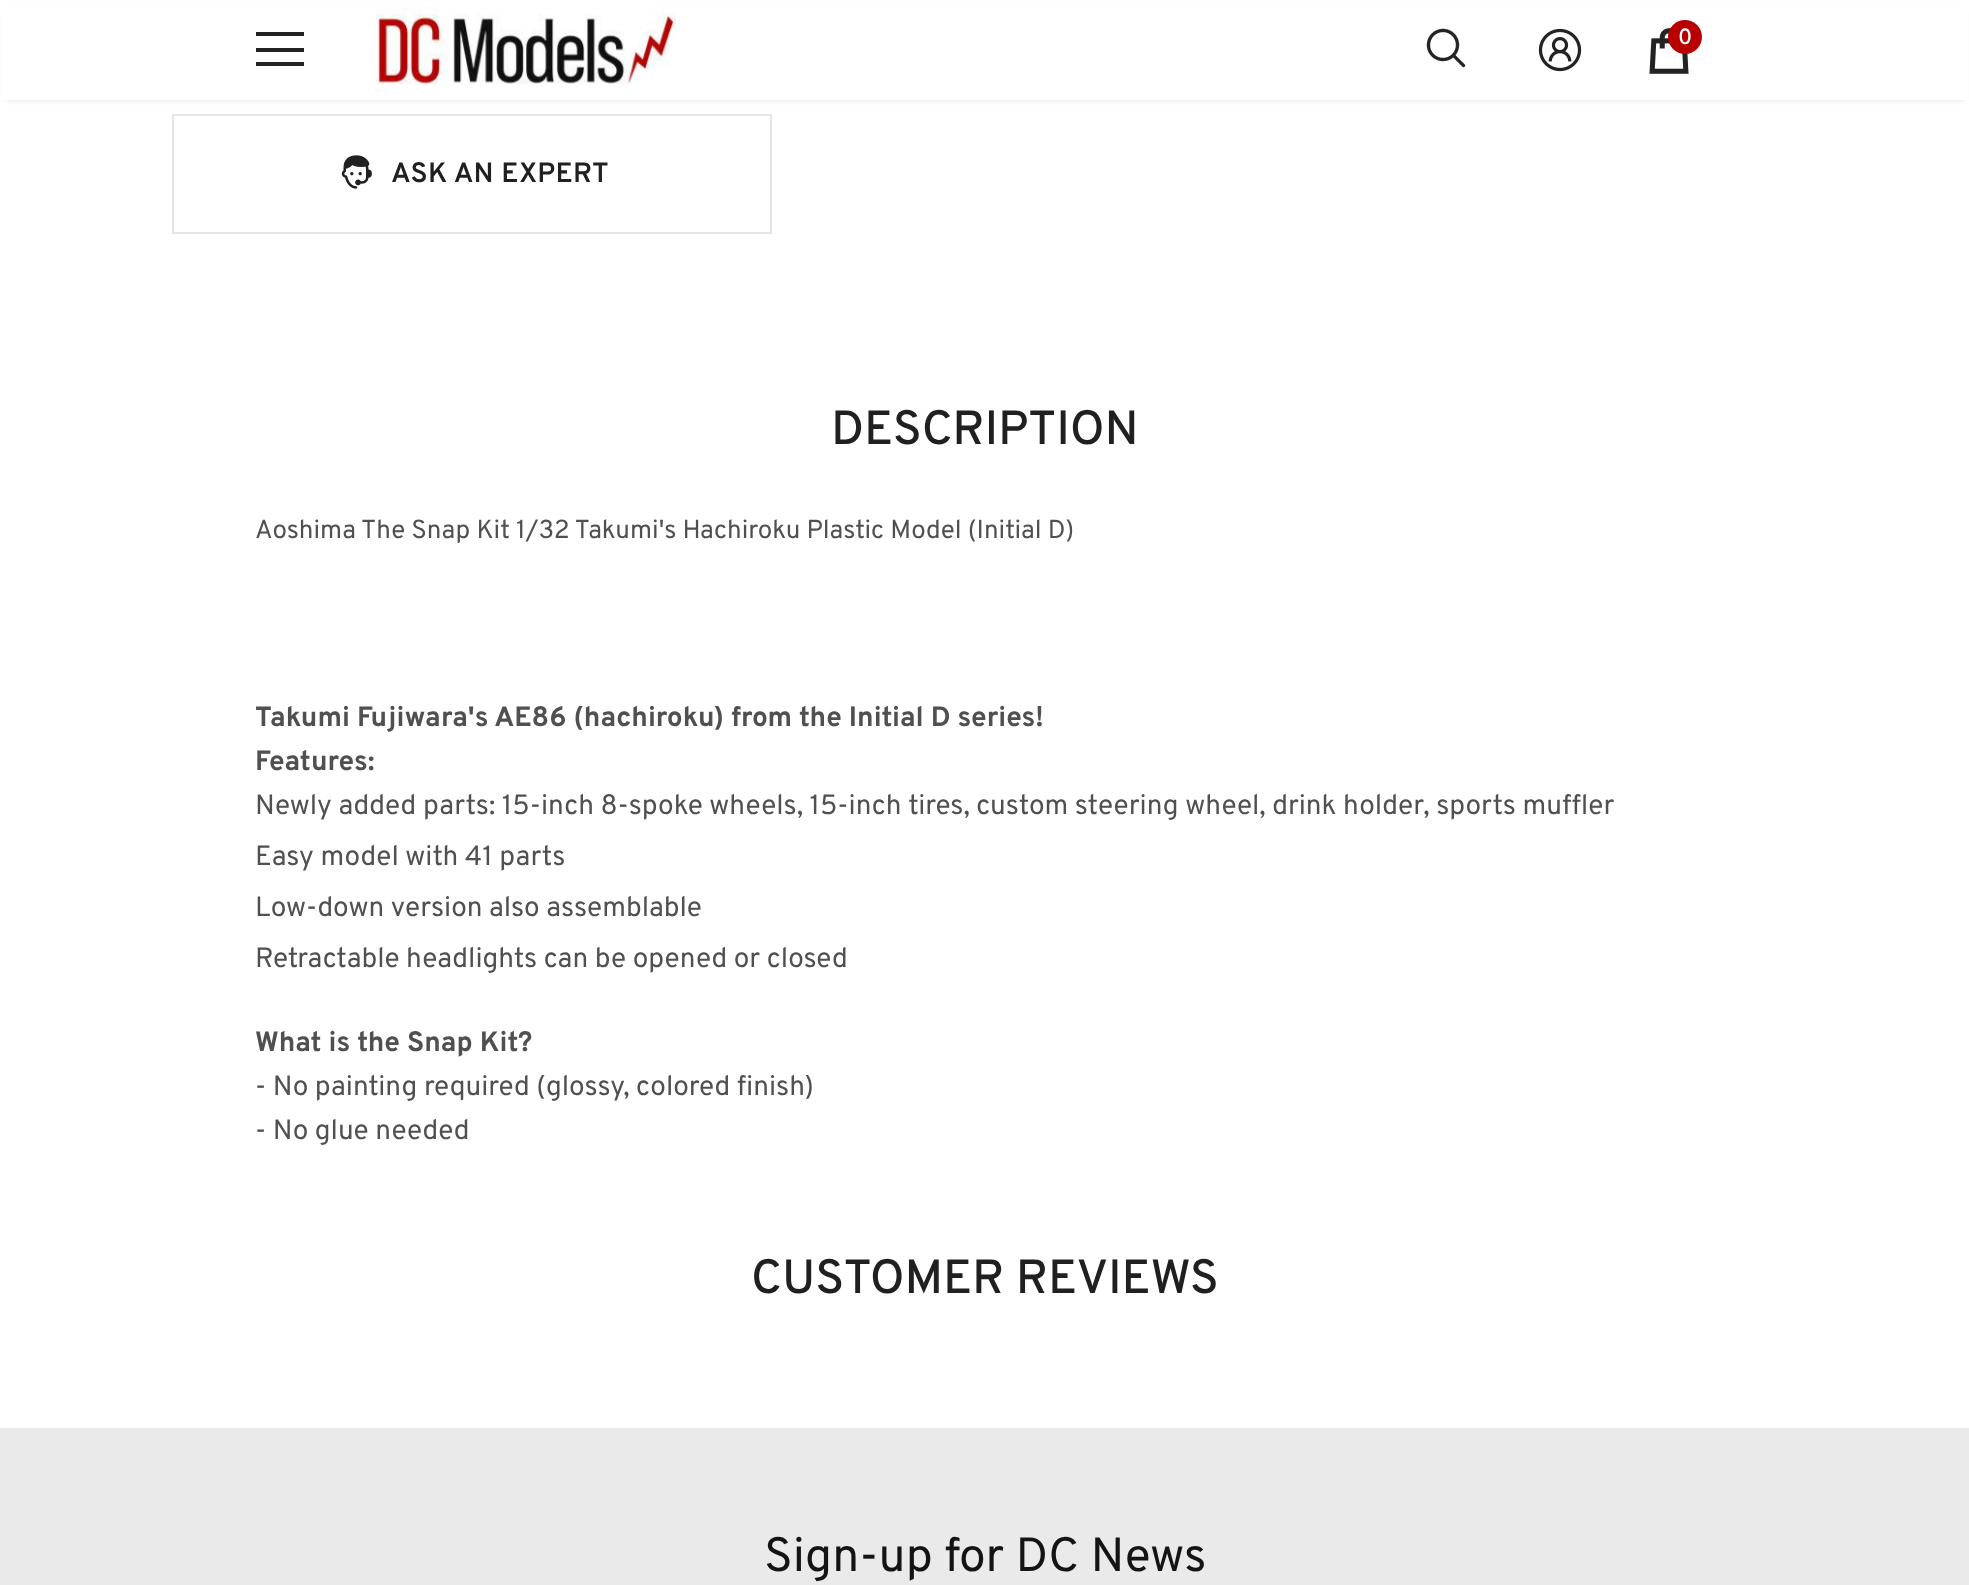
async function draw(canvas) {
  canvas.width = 1969
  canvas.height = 1585
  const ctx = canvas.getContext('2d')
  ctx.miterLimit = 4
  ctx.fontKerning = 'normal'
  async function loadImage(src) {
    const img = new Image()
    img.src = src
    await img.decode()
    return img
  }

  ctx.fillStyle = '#fff'
  ctx.fillRect(0, 0, 1969, 1585)
  ctx.fillStyle = '#0000001f'
  ctx.filter = 'blur(3px)'
  ctx.beginPath()
  ctx.rect(6, 12, 1958, 88)
  ctx.fill()
  ctx.filter = 'none'
  ctx.fillStyle = '#fff'
  ctx.fillRect(2, 8, 1966, 92)
  ctx.fillStyle = '#232323'
  ctx.fillRect(256, 32, 48, 4)
  ctx.fillRect(256, 48, 48, 4)
  ctx.fillRect(256, 62, 48, 4)
  ctx.drawImage(await loadImage('image0.png'), 376, 6, 300, 79)
  ctx.drawImage(await loadImage('image1.png'), 1426, 28, 40, 40)
  ctx.drawImage(await loadImage('image2.png'), 1538, 28, 44, 44)
  ctx.drawImage(await loadImage('image3.png'), 1649, 28, 40, 46)
  ctx.fillStyle = '#b90000'
  ctx.beginPath()
  ctx.arc(1685, 37, 17, 0, 2 * Math.PI)
  ctx.fill()
  ctx.font = '500 22px Overpass'
  ctx.fillStyle = '#fff'
  ctx.fillText('0', 1678, 44)
  ctx.strokeStyle = '#e6e6e6'
  ctx.lineWidth = 2
  ctx.strokeRect(173, 115, 598, 118)
  ctx.drawImage(await loadImage('image4.png'), 341, 155, 31, 34)
  ctx.letterSpacing = '0.4px'
  ctx.font = '600 28px Overpass'
  ctx.fillStyle = '#202020'
  ctx.fillText('ASK AN EXPERT', 391, 182)
  ctx.letterSpacing = '0px'
  ctx.font = '500 48px Overpass'
  ctx.fillText('DESCRIPTION', 831, 444)
  ctx.font = '26px Overpass'
  ctx.fillStyle = '#505050'
  ctx.fillText('Aoshima The Snap Kit 1/32 Takumi\'s Hachiroku Plastic Model (Initial D)', 255, 538)
  ctx.font = 'bold 28px Overpass'
  ctx.fillText('Takumi Fujiwara\'s AE86 (hachiroku) from the Initial D series!', 255, 726)
  ctx.fillText('Features:', 255, 770)
  ctx.font = '28px Overpass'
  ctx.fillText('Newly added parts: 15-inch 8-spoke wheels, 15-inch tires, custom steering wheel, drink holder, sports muffler', 255, 814)
  ctx.fillText('Easy model with 41 parts', 255, 865)
  ctx.fillText('Low-down version also assemblable', 255, 916)
  ctx.fillText('Retractable headlights can be opened or closed', 255, 967)
  ctx.font = 'bold 28px Overpass'
  ctx.fillText('What is the Snap Kit?', 255, 1051)
  ctx.font = '28px Overpass'
  ctx.fillText('- No painting required (glossy, colored finish)', 255, 1095)
  ctx.fillText('- No glue needed', 255, 1139)
  ctx.font = '500 48px Overpass'
  ctx.fillStyle = '#202020'
  ctx.fillText('CUSTOMER REVIEWS', 751, 1293)
  ctx.fillStyle = '#eaeaea'
  ctx.fillRect(0, 1428, 1969, 157)
  ctx.font = '48px Overpass'
  ctx.fillStyle = '#141414'
  ctx.fillText('Sign-up for DC News', 764, 1571)
}

draw(document.querySelector('canvas'))
